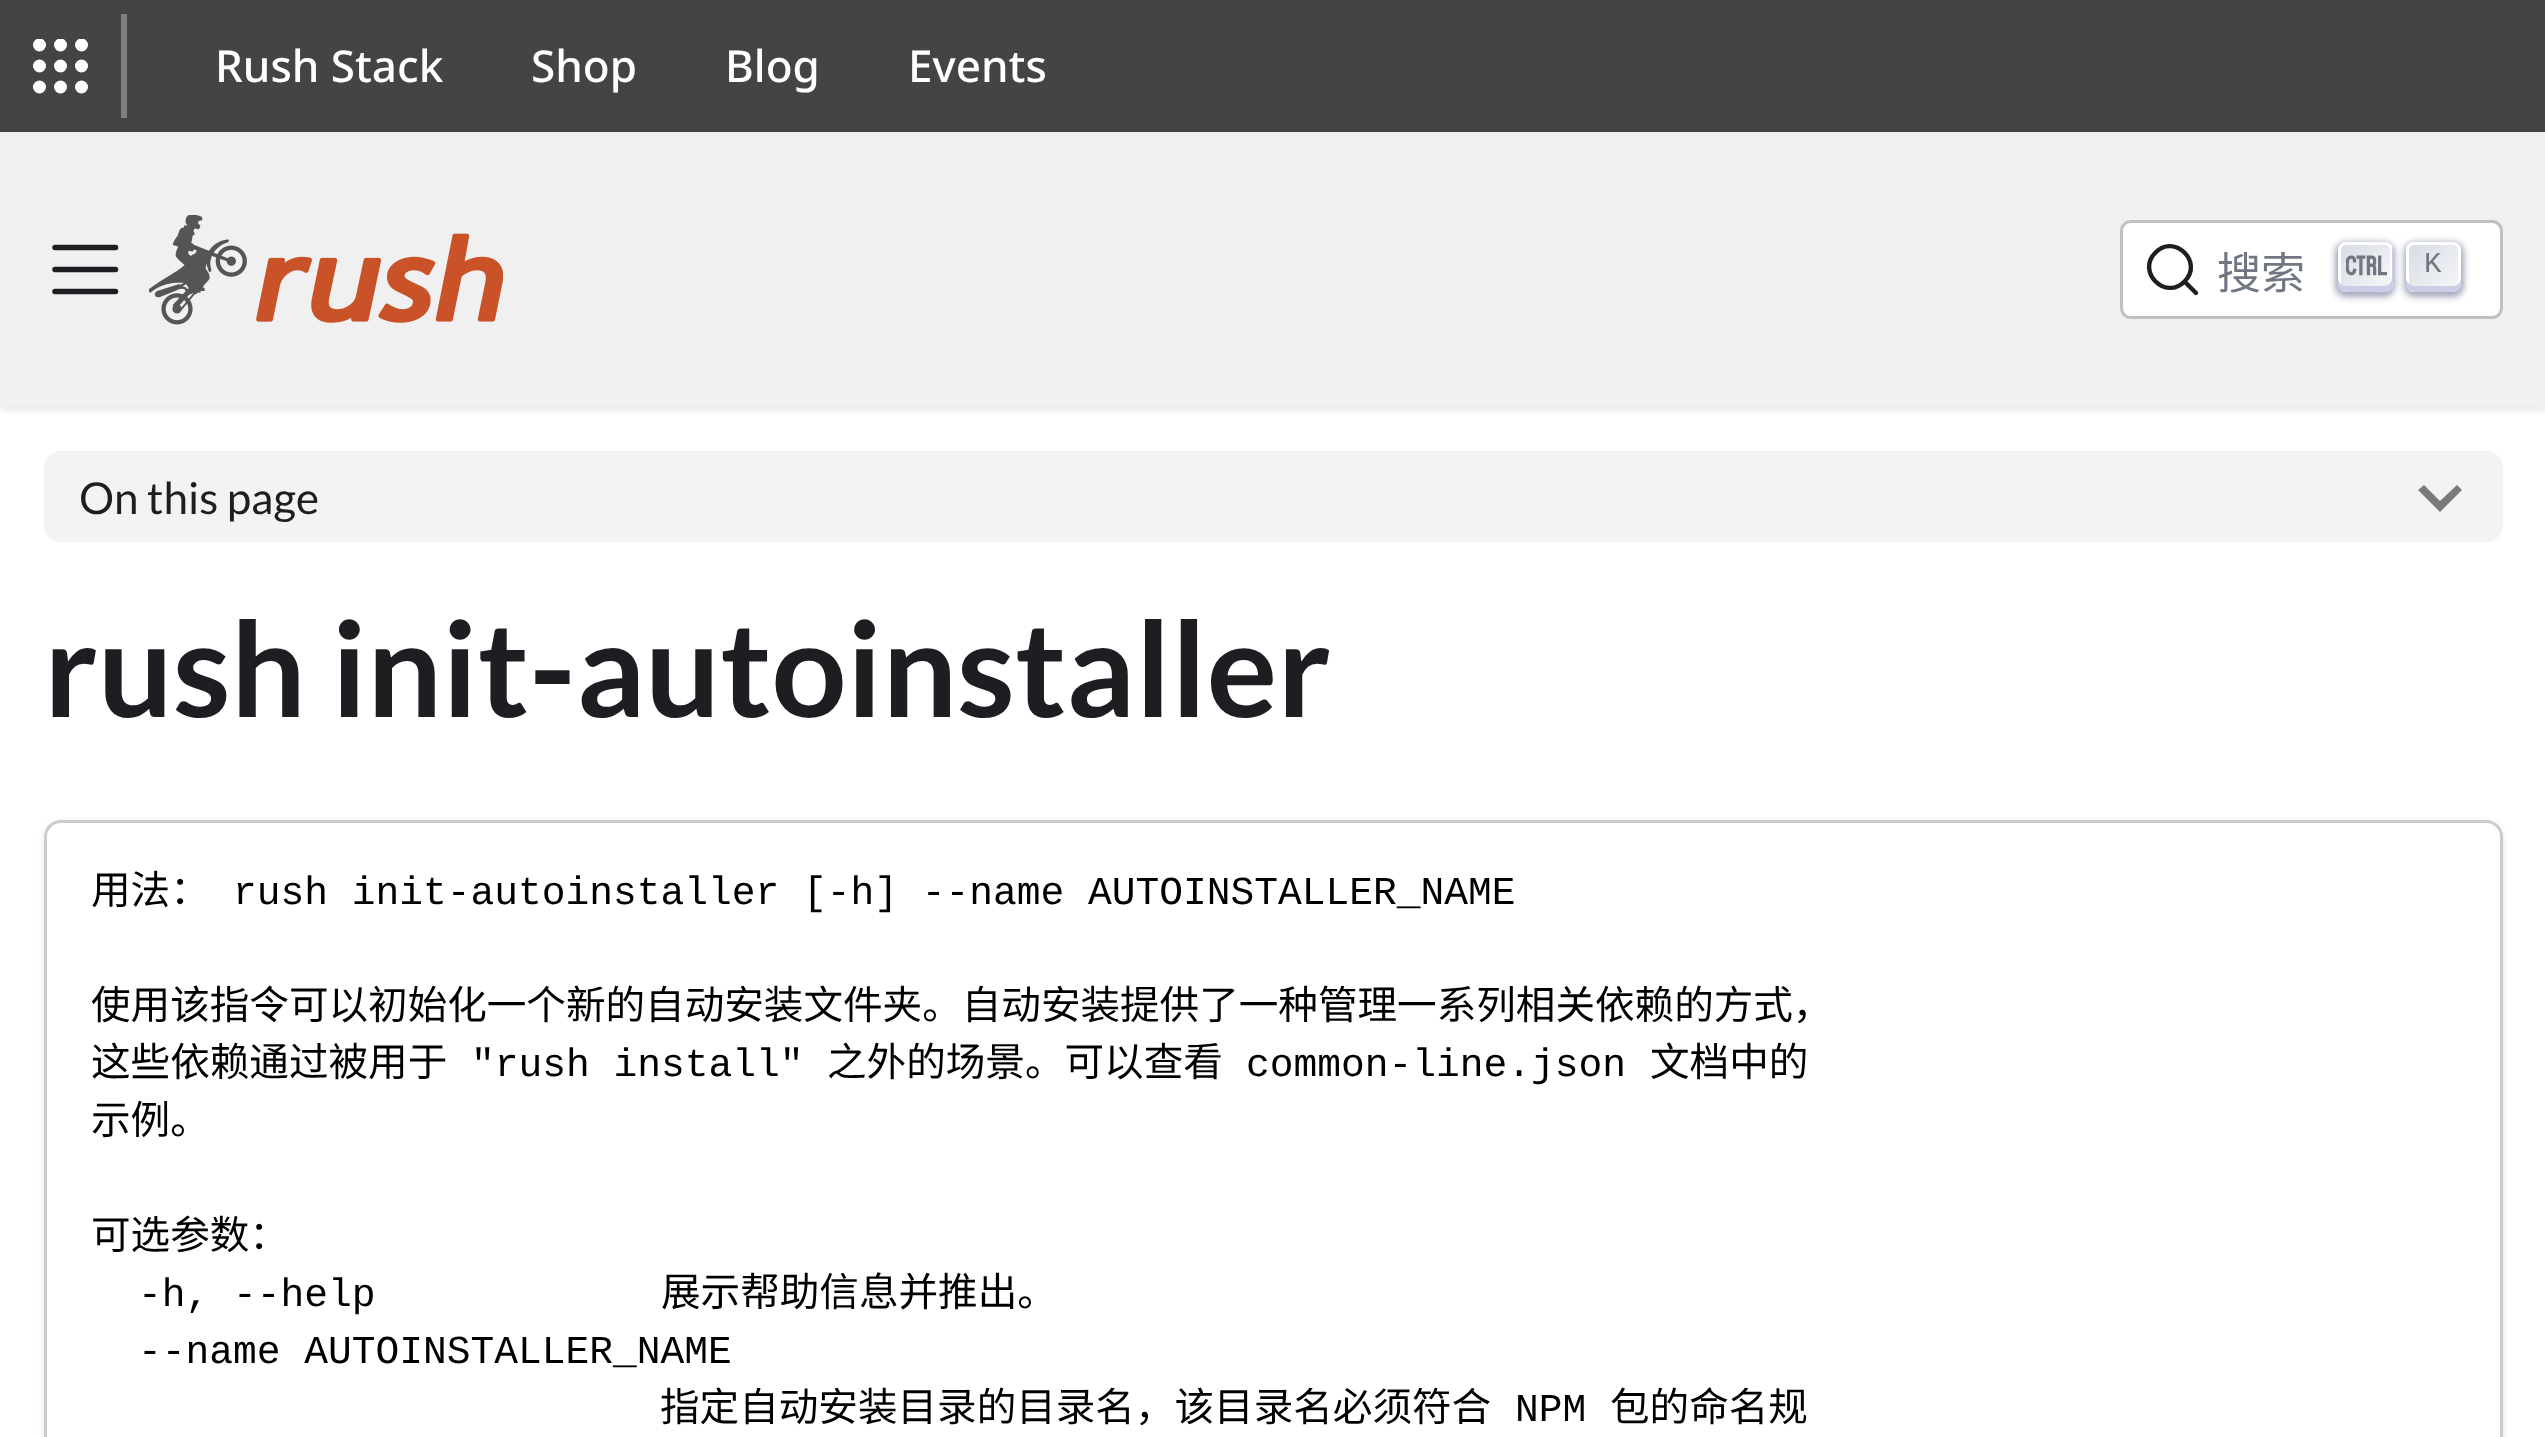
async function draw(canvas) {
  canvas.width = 2545
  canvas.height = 1437
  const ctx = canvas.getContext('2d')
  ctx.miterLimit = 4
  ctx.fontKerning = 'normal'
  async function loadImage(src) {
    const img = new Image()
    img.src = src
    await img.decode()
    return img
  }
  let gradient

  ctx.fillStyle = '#fff'
  ctx.fillRect(0, 0, 2545, 1437)
  ctx.fillStyle = '#444'
  ctx.fillRect(0, 0, 2545, 132)
  ctx.save()
  ctx.beginPath()
  ctx.rect(33, 39, 55, 55)
  ctx.clip()
  ctx.fillStyle = '#fff'
  ctx.beginPath()
  ctx.arc(39.5, 45, 6.5, 0, 2 * Math.PI)
  ctx.fill()
  ctx.beginPath()
  ctx.arc(60.5, 45, 6.5, 0, 2 * Math.PI)
  ctx.fill()
  ctx.beginPath()
  ctx.arc(81.5, 45, 6.5, 0, 2 * Math.PI)
  ctx.fill()
  ctx.restore()
  ctx.fillStyle = '#fff'
  ctx.beginPath()
  ctx.arc(39.5, 66, 6.5, 0, 2 * Math.PI)
  ctx.fill()
  ctx.beginPath()
  ctx.arc(60.5, 66, 6.5, 0, 2 * Math.PI)
  ctx.fill()
  ctx.beginPath()
  ctx.arc(81.5, 66, 6.5, 0, 2 * Math.PI)
  ctx.fill()
  ctx.beginPath()
  ctx.arc(39.5, 87, 6.5, 0, 2 * Math.PI)
  ctx.fill()
  ctx.beginPath()
  ctx.arc(60.5, 87, 6.5, 0, 2 * Math.PI)
  ctx.fill()
  ctx.beginPath()
  ctx.arc(81.5, 87, 6.5, 0, 2 * Math.PI)
  ctx.fill()
  ctx.fillStyle = '#808080'
  ctx.fillRect(121, 14, 6, 104)
  ctx.font = '500 44px Noto Sans'
  ctx.fillStyle = '#fff'
  ctx.fillText('Rush Stack', 215, 82)
  ctx.fillText('Shop', 531, 82)
  ctx.fillText('Blog', 725, 82)
  ctx.fillText('Events', 908, 82)
  ctx.fillStyle = '#0000001a'
  ctx.filter = 'blur(3px)'
  ctx.beginPath()
  ctx.rect(0, 135, 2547, 275)
  ctx.fill()
  ctx.filter = 'none'
  ctx.fillStyle = '#f0f0f0'
  ctx.fillRect(0, 132, 2545, 275)
  ctx.beginPath()
  ctx.moveTo(55, 247.5)
  ctx.lineTo(115.5, 247.5)
  ctx.moveTo(55, 269.5)
  ctx.lineTo(115.5, 269.5)
  ctx.moveTo(55, 291.5)
  ctx.lineTo(115.5, 291.5)
  ctx.strokeStyle = '#1c1e21'
  ctx.lineWidth = 5.5
  ctx.lineCap = 'round'
  ctx.stroke()
  ctx.drawImage(await loadImage('image0.png'), 149, 215, 354, 110)
  ctx.fillStyle = '#fff'
  ctx.beginPath()
  ctx.roundRect(2121.5, 221.5, 380, 96, 9.5)
  ctx.fill()
  ctx.strokeStyle = '#c0c0c0'
  ctx.lineWidth = 3
  ctx.stroke()
  ctx.beginPath()
  ctx.moveTo(2184.5, 281.5)
  ctx.lineTo(2196, 293)
  ctx.lineTo(2184.5, 281.5)
  ctx.bezierCurveTo(2165.5, 301, 2136, 271.5, 2155.5, 252.5)
  ctx.bezierCurveTo(2174.5, 233, 2204, 262.5, 2184.5, 281.5)
  ctx.closePath()
  ctx.strokeStyle = '#1c1e21'
  ctx.lineWidth = 4.4
  ctx.lineJoin = 'round'
  ctx.stroke()
  ctx.font = '44px Noto Sans CJK SC'
  ctx.fillStyle = '#707783'
  ctx.fillText('搜索', 2217, 289)
  ctx.fillStyle = '#1e235a66'
  ctx.filter = 'blur(3px)'
  ctx.beginPath()
  ctx.roundRect(2335, 242, 60, 55, 11)
  ctx.fill()
  ctx.filter = 'none'
  gradient = ctx.createLinearGradient(2339, 241, 2391, 293)
  gradient.addColorStop(0, '#d5dbe4')
  gradient.addColorStop(1, '#f8f8f8')
  ctx.fillStyle = gradient
  ctx.beginPath()
  ctx.roundRect(2339.5, 243.5, 52, 47, 6.5)
  ctx.fill()
  ctx.strokeStyle = '#fff'
  ctx.lineWidth = 3
  ctx.lineJoin = 'miter'
  ctx.stroke()
  ctx.fillStyle = '#cdcde6'
  ctx.beginPath()
  ctx.moveTo(2338, 278)
  ctx.bezierCurveTo(2338, 291, 2339, 292, 2352, 292)
  ctx.lineTo(2366, 292)
  ctx.bezierCurveTo(2395, 292, 2393, 296, 2393, 267)
  ctx.lineTo(2393, 256)
  ctx.bezierCurveTo(2393, 253, 2394, 249, 2392, 246)
  ctx.lineTo(2392, 278)
  ctx.bezierCurveTo(2392, 282, 2389, 286, 2384, 286)
  ctx.lineTo(2346, 286)
  ctx.bezierCurveTo(2341, 286, 2338, 282, 2338, 278)
  ctx.closePath()
  ctx.fill()
  ctx.drawImage(await loadImage('image1.png'), 2346, 255, 41, 21)
  ctx.fillStyle = '#1e235a66'
  ctx.filter = 'blur(3px)'
  ctx.beginPath()
  ctx.roundRect(2404, 242, 60, 55, 11)
  ctx.fill()
  ctx.filter = 'none'
  gradient = ctx.createLinearGradient(2408, 241, 2460, 293)
  gradient.addColorStop(0, '#d5dbe4')
  gradient.addColorStop(1, '#f8f8f8')
  ctx.fillStyle = gradient
  ctx.beginPath()
  ctx.roundRect(2407.5, 243.5, 52, 47, 6.5)
  ctx.fill()
  ctx.stroke()
  ctx.fillStyle = '#cdcde6'
  ctx.beginPath()
  ctx.moveTo(2406, 278)
  ctx.bezierCurveTo(2406, 291, 2407, 292, 2420, 292)
  ctx.lineTo(2446, 292)
  ctx.bezierCurveTo(2460, 292, 2461, 291, 2461, 278)
  ctx.bezierCurveTo(2461, 282, 2458, 286, 2453, 286)
  ctx.lineTo(2414, 286)
  ctx.bezierCurveTo(2410, 286, 2406, 282, 2406, 278)
  ctx.closePath()
  ctx.fill()
  ctx.font = '29px Liberation Mono'
  ctx.fillStyle = '#707783'
  ctx.fillText('K', 2424, 272)
  ctx.fillStyle = '#f3f3f3'
  ctx.beginPath()
  ctx.roundRect(44, 451, 2459, 91, 17)
  ctx.fill()
  ctx.font = '44px Lato'
  ctx.fillStyle = '#1c1e21'
  ctx.fillText('On this page', 79, 514)
  ctx.fillStyle = '#7a7a7a'
  ctx.beginPath()
  ctx.moveTo(2457, 485)
  ctx.lineTo(2440, 501)
  ctx.lineTo(2424, 485)
  ctx.lineTo(2418, 490)
  ctx.lineTo(2440, 512)
  ctx.lineTo(2462, 490)
  ctx.closePath()
  ctx.fill()
  ctx.font = 'bold 132px Lato'
  ctx.fillStyle = '#1c1e21'
  ctx.fillText('rush init-autoinstaller', 44, 717)
  ctx.fillStyle = '#0000001a'
  ctx.filter = 'blur(3px)'
  ctx.beginPath()
  ctx.roundRect(44, 822, 2459, 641, 17)
  ctx.fill()
  ctx.filter = 'none'
  ctx.fillStyle = '#fff'
  ctx.beginPath()
  ctx.roundRect(45.5, 821.5, 2456, 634, 15.5)
  ctx.fill()
  ctx.strokeStyle = '#ccc'
  ctx.stroke()
  ctx.font = '39.6px Noto Sans CJK SC'
  ctx.fillStyle = '#000'
  ctx.fillText('用法：', 91, 904)
  ctx.font = '39.6px Liberation Mono'
  ctx.fillText('rush init-autoinstaller [-h] --name AUTOINSTALLER_NAME', 233, 904)
  ctx.font = '39.6px Noto Sans CJK SC'
  ctx.fillText('使用该指令可以初始化一个新的自动安装文件夹。自动安装提供了一种管理一系列相关依赖的方式，', 91, 1019)
  ctx.fillText('这些依赖通过被用于', 91, 1076)
  ctx.font = '39.6px Liberation Mono'
  ctx.fillText('"rush install"', 471, 1076)
  ctx.font = '39.6px Noto Sans CJK SC'
  ctx.fillText('之外的场景。可以查看', 827, 1076)
  ctx.font = '39.6px Liberation Mono'
  ctx.fillText('common-line.json', 1246, 1076)
  ctx.font = '39.6px Noto Sans CJK SC'
  ctx.fillText('文档中的', 1650, 1076)
  ctx.fillText('示例。', 91, 1134)
  ctx.fillText('可选参数：', 91, 1249)
  ctx.font = '39.6px Liberation Mono'
  ctx.fillText('-h, --help', 138, 1306)
  ctx.font = '39.6px Noto Sans CJK SC'
  ctx.fillText('展示帮助信息并推出。', 661, 1306)
  ctx.font = '39.6px Liberation Mono'
  ctx.fillText('--name AUTOINSTALLER_NAME', 138, 1363)
  ctx.font = '39.6px Noto Sans CJK SC'
  ctx.fillText('指定自动安装目录的目录名，该目录名必须符合', 660, 1421)
  ctx.font = '39.6px Liberation Mono'
  ctx.fillText('NPM', 1515, 1421)
  ctx.font = '39.6px Noto Sans CJK SC'
  ctx.fillText('包的命名规', 1610, 1421)
}

draw(document.querySelector('canvas'))
